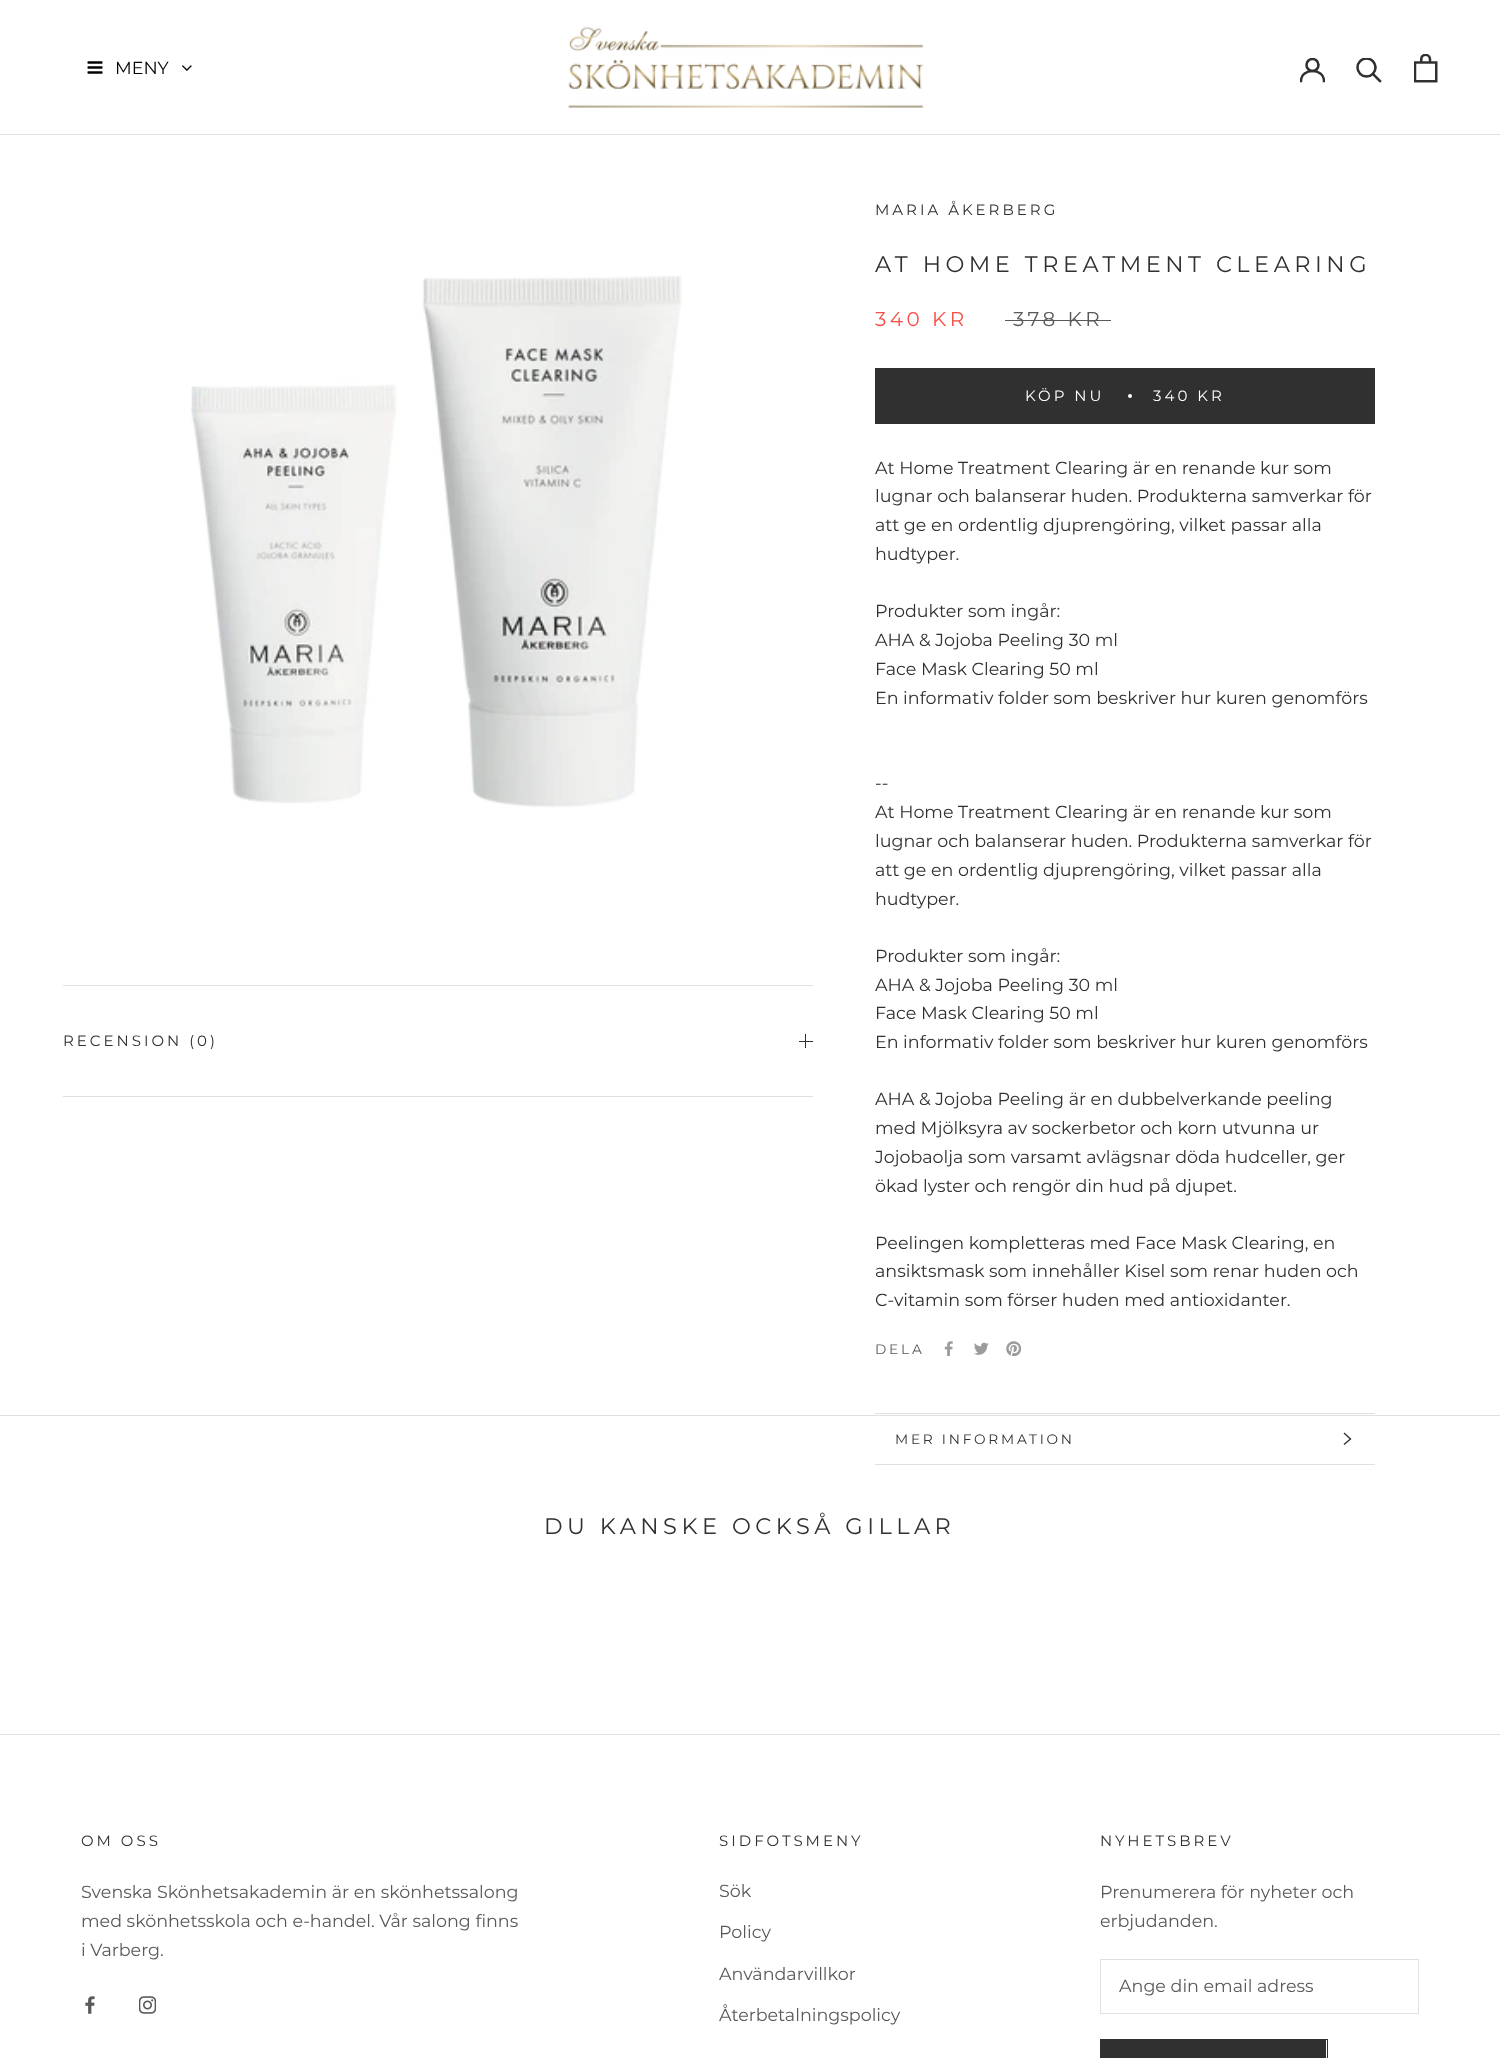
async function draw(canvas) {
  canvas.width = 1500
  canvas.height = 2058
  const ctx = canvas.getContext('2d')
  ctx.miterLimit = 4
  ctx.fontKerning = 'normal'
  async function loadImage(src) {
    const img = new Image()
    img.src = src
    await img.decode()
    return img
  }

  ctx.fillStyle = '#fff'
  ctx.fillRect(0, 0, 1500, 2058)
  ctx.fillStyle = '#e0e0e0'
  ctx.fillRect(0, 134, 1500, 1)
  ctx.drawImage(await loadImage('image0.png'), 87, 61, 16, 13)
  ctx.font = '100 17.5px Montserrat'
  ctx.fillStyle = '#000'
  ctx.fillText('MENY', 115, 74)
  ctx.drawImage(await loadImage('image1.png'), 182, 65, 10, 6)
  ctx.drawImage(await loadImage('image2.png'), 568, 27, 356, 81)
  ctx.save()
  ctx.beginPath()
  ctx.rect(1300, 58, 25, 25)
  ctx.clip()
  ctx.beginPath()
  ctx.moveTo(1301, 81)
  ctx.bezierCurveTo(1301, 67.5, 1324, 67.5, 1324, 81)
  ctx.strokeStyle = '#303030'
  ctx.lineWidth = 2.5
  ctx.lineCap = 'square'
  ctx.stroke()
  ctx.beginPath()
  ctx.arc(1312.5, 65, 6, 0, 2 * Math.PI)
  ctx.stroke()
  ctx.restore()
  ctx.beginPath()
  ctx.moveTo(1380, 81)
  ctx.lineTo(1373, 74)
  ctx.strokeStyle = '#303030'
  ctx.lineWidth = 2.5
  ctx.lineCap = 'square'
  ctx.stroke()
  ctx.save()
  ctx.beginPath()
  ctx.rect(1356, 58, 27, 26)
  ctx.clip()
  ctx.beginPath()
  ctx.arc(1366.5, 67.5, 9, 0, 2 * Math.PI)
  ctx.stroke()
  ctx.restore()
  ctx.drawImage(await loadImage('image3.png'), 1414, 54, 24, 29)
  ctx.drawImage(await loadImage('image4.png'), 190, 275, 492, 533)
  ctx.letterSpacing = '3px'
  ctx.font = '100 15px Montserrat'
  ctx.fillStyle = '#303030'
  ctx.fillText('MARIA ÅKERBERG', 875, 215)
  ctx.letterSpacing = '4.5px'
  ctx.font = '100 22.5px Montserrat'
  ctx.fillText('AT HOME TREATMENT CLEARING', 875, 272)
  ctx.letterSpacing = '3.5px'
  ctx.font = '100 20px Montserrat'
  ctx.fillStyle = '#f94c43'
  ctx.fillText('340 KR', 875, 326)
  ctx.fillStyle = '#595959'
  ctx.fillText('378 KR', 1013, 326)
  ctx.fillRect(1005, 320, 106, 1)
  ctx.lineWidth = 1
  ctx.strokeRect(875.5, 368.5, 499, 55)
  ctx.fillStyle = '#303030'
  ctx.fillRect(876, 369, 498, 54)
  ctx.letterSpacing = '3px'
  ctx.font = '100 15px Montserrat'
  ctx.fillStyle = '#fff'
  ctx.fillText('KÖP NU', 1025, 401)
  ctx.beginPath()
  ctx.arc(1130, 396, 2, 0, 2 * Math.PI)
  ctx.fill()
  ctx.fillText('340 KR', 1153, 401)
  ctx.letterSpacing = '0px'
  ctx.font = '100 17.5px Montserrat'
  ctx.fillStyle = '#303030'
  ctx.fillText('At Home Treatment Clearing är en renande kur som', 875, 474)
  ctx.fillText('lugnar och balanserar huden. Produkterna samverkar för', 875, 502)
  ctx.fillText('att ge en ordentlig djuprengöring, vilket passar alla', 875, 531)
  ctx.fillText('hudtyper.', 875, 560)
  ctx.fillText('Produkter som ingår:', 875, 617)
  ctx.fillText('AHA & Jojoba Peeling 30 ml', 875, 646)
  ctx.fillText('Face Mask Clearing 50 ml', 875, 675)
  ctx.fillText('En informativ folder som beskriver hur kuren genomförs', 875, 704)
  ctx.fillText('--', 875, 789)
  ctx.fillText('At Home Treatment Clearing är en renande kur som', 875, 818)
  ctx.fillText('lugnar och balanserar huden. Produkterna samverkar för', 875, 847)
  ctx.fillText('att ge en ordentlig djuprengöring, vilket passar alla', 875, 876)
  ctx.fillText('hudtyper.', 875, 905)
  ctx.fillText('Produkter som ingår:', 875, 962)
  ctx.fillText('AHA & Jojoba Peeling 30 ml', 875, 991)
  ctx.fillText('Face Mask Clearing 50 ml', 875, 1019)
  ctx.fillText('En informativ folder som beskriver hur kuren genomförs', 875, 1048)
  ctx.fillText('AHA & Jojoba Peeling är en dubbelverkande peeling', 875, 1105)
  ctx.fillText('med Mjölksyra av sockerbetor och korn utvunna ur', 875, 1134)
  ctx.fillText('Jojobaolja som varsamt avlägsnar döda hudceller, ger', 875, 1163)
  ctx.fillText('ökad lyster och rengör din hud på djupet.', 875, 1192)
  ctx.fillText('Peelingen kompletteras med Face Mask Clearing, en', 875, 1249)
  ctx.fillText('ansiktsmask som innehåller Kisel som renar huden och', 875, 1277)
  ctx.fillText('C-vitamin som förser huden med antioxidanter.', 875, 1306)
  ctx.letterSpacing = '2.75px'
  ctx.font = '100 13.75px Montserrat'
  ctx.fillStyle = '#595959'
  ctx.fillText('DELA', 875, 1354)
  ctx.drawImage(await loadImage('image5.png'), 944, 1341, 9, 15)
  ctx.drawImage(await loadImage('image6.png'), 974, 1342, 15, 13)
  ctx.drawImage(await loadImage('image7.png'), 1006, 1341, 15, 15)
  ctx.fillStyle = '#e0e0e0'
  ctx.fillRect(875, 1413, 500, 1)
  ctx.fillRect(875, 1464, 500, 1)
  ctx.fillStyle = '#303030'
  ctx.fillText('MER INFORMATION', 895, 1444)
  ctx.beginPath()
  ctx.moveTo(1344.5, 1433.5)
  ctx.lineTo(1350.5, 1439)
  ctx.lineTo(1344.5, 1444)
  ctx.lineWidth = 1.4
  ctx.stroke()
  ctx.fillStyle = '#e0e0e0'
  ctx.fillRect(63, 985, 750, 1)
  ctx.fillRect(63, 1096, 750, 1)
  ctx.letterSpacing = '3px'
  ctx.font = '100 15px Montserrat'
  ctx.fillStyle = '#303030'
  ctx.fillText('RECENSION (0)', 63, 1046)
  ctx.fillRect(805, 1034, 1, 14)
  ctx.fillRect(799, 1041, 14, 1)
  ctx.fillStyle = '#e0e0e0'
  ctx.fillRect(0, 1415, 1500, 1)
  ctx.letterSpacing = '4.5px'
  ctx.font = '100 22.5px Montserrat'
  ctx.fillStyle = '#303030'
  ctx.fillText('DU KANSKE OCKSÅ GILLAR', 544, 1534)
  ctx.fillStyle = '#e0e0e0'
  ctx.fillRect(0, 1734, 1500, 1)
  ctx.letterSpacing = '3px'
  ctx.font = '100 15px Montserrat'
  ctx.fillStyle = '#303030'
  ctx.fillText('OM OSS', 81, 1846)
  ctx.letterSpacing = '0px'
  ctx.font = '100 17.5px Montserrat'
  ctx.fillStyle = '#595959'
  ctx.fillText('Svenska Skönhetsakademin är en skönhetssalong', 81, 1898)
  ctx.fillText('med skönhetsskola och e-handel. Vår salong finns', 81, 1927)
  ctx.fillText('i Varberg.', 81, 1956)
  ctx.drawImage(await loadImage('image8.png'), 85, 1996, 10, 18)
  ctx.drawImage(await loadImage('image9.png'), 139, 1996, 17, 18)
  ctx.letterSpacing = '3px'
  ctx.font = '100 15px Montserrat'
  ctx.fillStyle = '#303030'
  ctx.fillText('SIDFOTSMENY', 719, 1846)
  ctx.letterSpacing = '0px'
  ctx.font = '100 17.5px Montserrat'
  ctx.fillStyle = '#595959'
  ctx.fillText('Sök', 719, 1897)
  ctx.fillText('Policy', 719, 1938)
  ctx.fillText('Användarvillkor', 719, 1980)
  ctx.fillText('Återbetalningspolicy', 719, 2021)
  ctx.letterSpacing = '3px'
  ctx.font = '100 15px Montserrat'
  ctx.fillStyle = '#303030'
  ctx.fillText('NYHETSBREV', 1100, 1846)
  ctx.letterSpacing = '0px'
  ctx.font = '100 17.5px Montserrat'
  ctx.fillStyle = '#595959'
  ctx.fillText('Prenumerera för nyheter och', 1100, 1898)
  ctx.fillText('erbjudanden.', 1100, 1927)
  ctx.strokeStyle = '#e0e0e0'
  ctx.lineWidth = 1
  ctx.strokeRect(1100.5, 1959.5, 318, 54)
  ctx.fillText('Ange din email adress', 1119, 1992)
  ctx.strokeStyle = '#303030'
  ctx.strokeRect(1100.5, 2039.5, 227, 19)
  ctx.fillStyle = '#303030'
  ctx.fillRect(1101, 2040, 225, 18)
}

draw(document.querySelector('canvas'))
